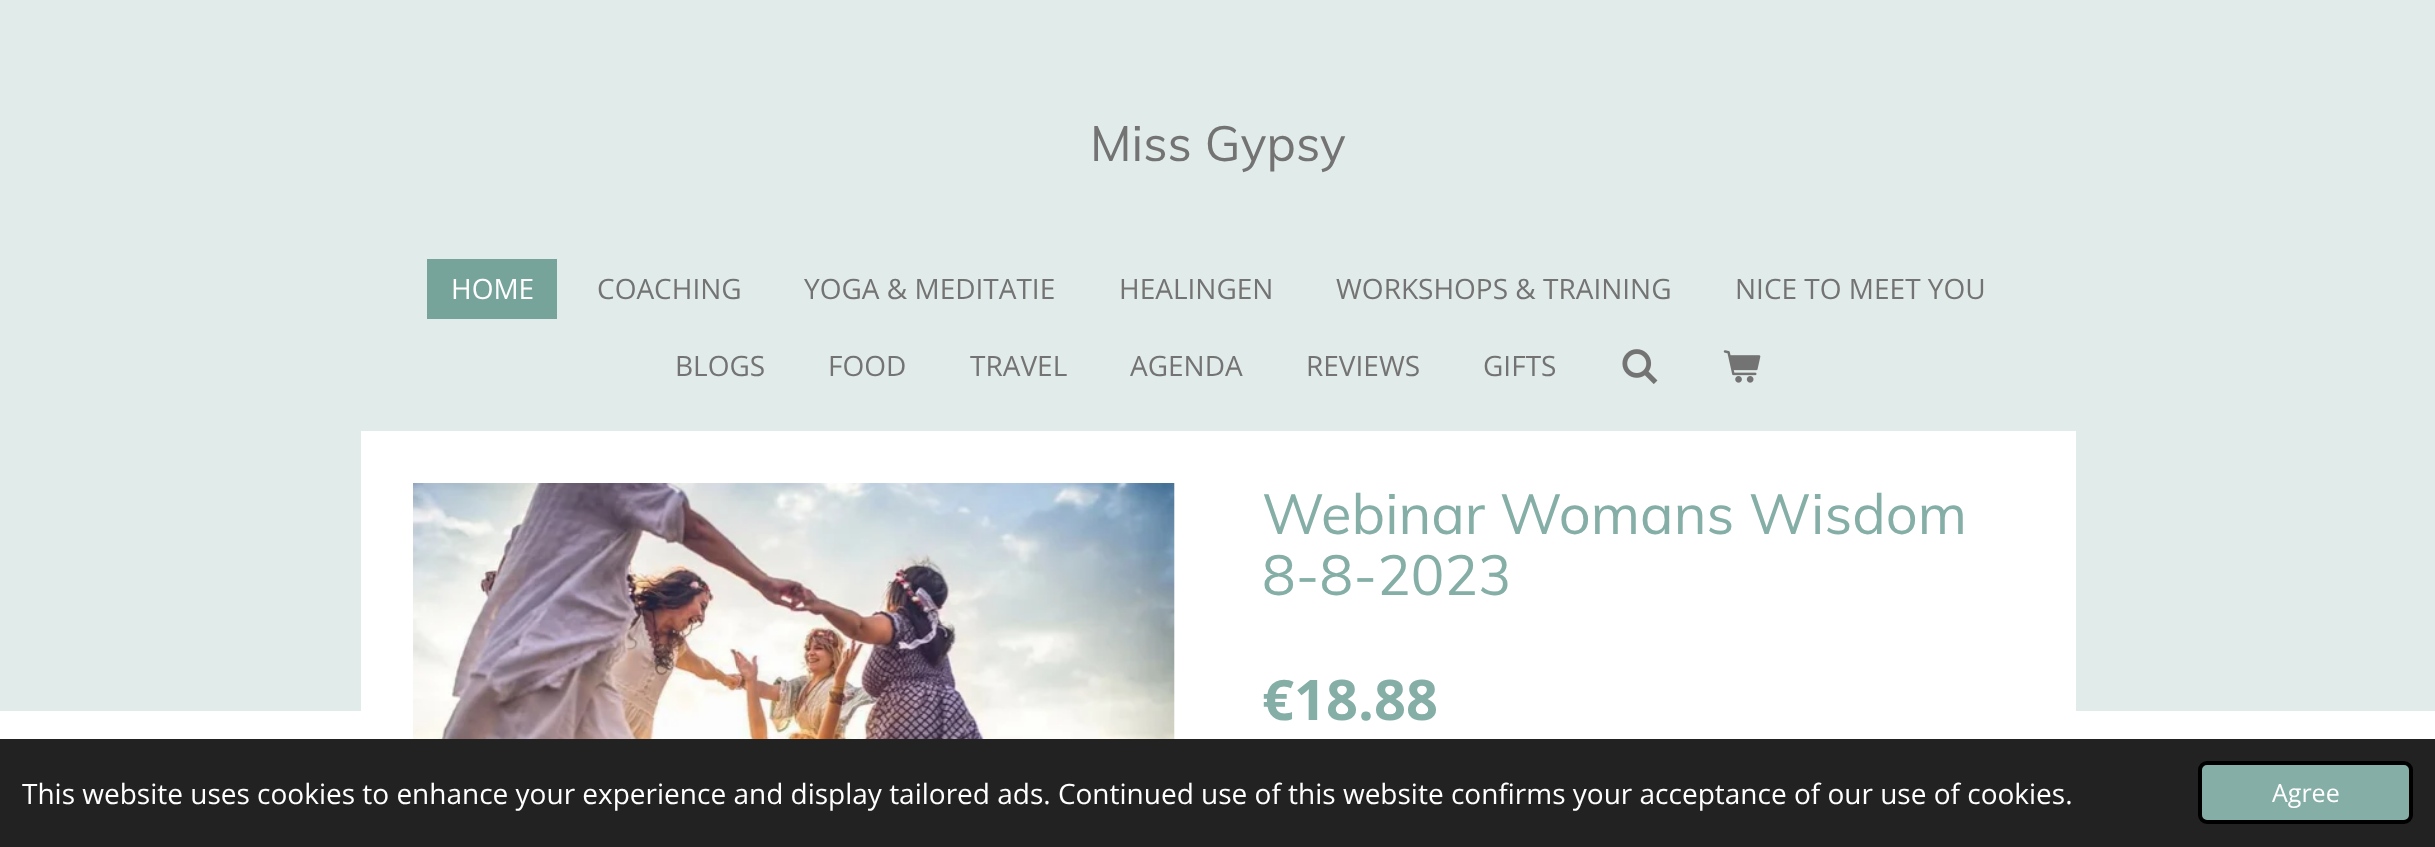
async function draw(canvas) {
  canvas.width = 2435
  canvas.height = 847
  const ctx = canvas.getContext('2d')
  ctx.miterLimit = 4
  ctx.fontKerning = 'normal'
  async function loadImage(src) {
    const img = new Image()
    img.src = src
    await img.decode()
    return img
  }

  ctx.fillStyle = '#fff'
  ctx.fillRect(0, 0, 2435, 847)
  ctx.fillStyle = '#e1ebe9'
  ctx.fillRect(0, 0, 2435, 711)
  ctx.font = '49px Muli'
  ctx.fillStyle = '#737373'
  ctx.fillText('Miss Gypsy', 1090, 161)
  ctx.fillStyle = '#76a49a'
  ctx.fillRect(427, 259, 130, 60)
  ctx.font = '28px Open Sans'
  ctx.fillStyle = '#fff'
  ctx.fillText('HOME', 451, 299)
  ctx.fillStyle = '#737373'
  ctx.fillText('COACHING', 597, 299)
  ctx.fillText('YOGA & MEDITATIE', 804, 299)
  ctx.fillText('HEALINGEN', 1119, 299)
  ctx.fillText('WORKSHOPS & TRAINING', 1336, 299)
  ctx.fillText('NICE TO MEET YOU', 1735, 299)
  ctx.fillText('BLOGS', 675, 376)
  ctx.fillText('FOOD', 828, 376)
  ctx.fillText('TRAVEL', 970, 376)
  ctx.fillText('AGENDA', 1130, 376)
  ctx.fillText('REVIEWS', 1306, 376)
  ctx.fillText('GIFTS', 1483, 376)
  ctx.drawImage(await loadImage('image0.png'), 1622, 349, 36, 35)
  ctx.drawImage(await loadImage('image1.png'), 1723, 350, 38, 33)
  ctx.fillStyle = '#fff'
  ctx.fillRect(361, 431, 1715, 280)
  ctx.drawImage(await loadImage('image2.png'), 413, 483, 762, 256)
  ctx.font = '56px Muli'
  ctx.fillStyle = '#85aea6'
  ctx.fillText('Webinar Womans Wisdom', 1262, 534)
  ctx.fillText('8-8-2023', 1262, 595)
  ctx.font = 'bold 56px Open Sans'
  ctx.fillText('€18.88', 1262, 720)
  ctx.fillStyle = '#222'
  ctx.fillRect(0, 739, 2435, 108)
  ctx.font = '28px Open Sans'
  ctx.fillStyle = '#fff'
  ctx.fillText('This website uses cookies to enhance your experience and display tailored ads. Continued use of this website confirms your acceptance of our use of cookies.', 22, 804)
  ctx.fillStyle = '#85aea6'
  ctx.beginPath()
  ctx.roundRect(2200, 763, 211, 59, 7)
  ctx.fill()
  ctx.strokeStyle = '#000'
  ctx.lineWidth = 4
  ctx.stroke()
  ctx.font = '25px Open Sans'
  ctx.fillStyle = '#fff'
  ctx.fillText('Agree', 2272, 802)
}

draw(document.querySelector('canvas'))
